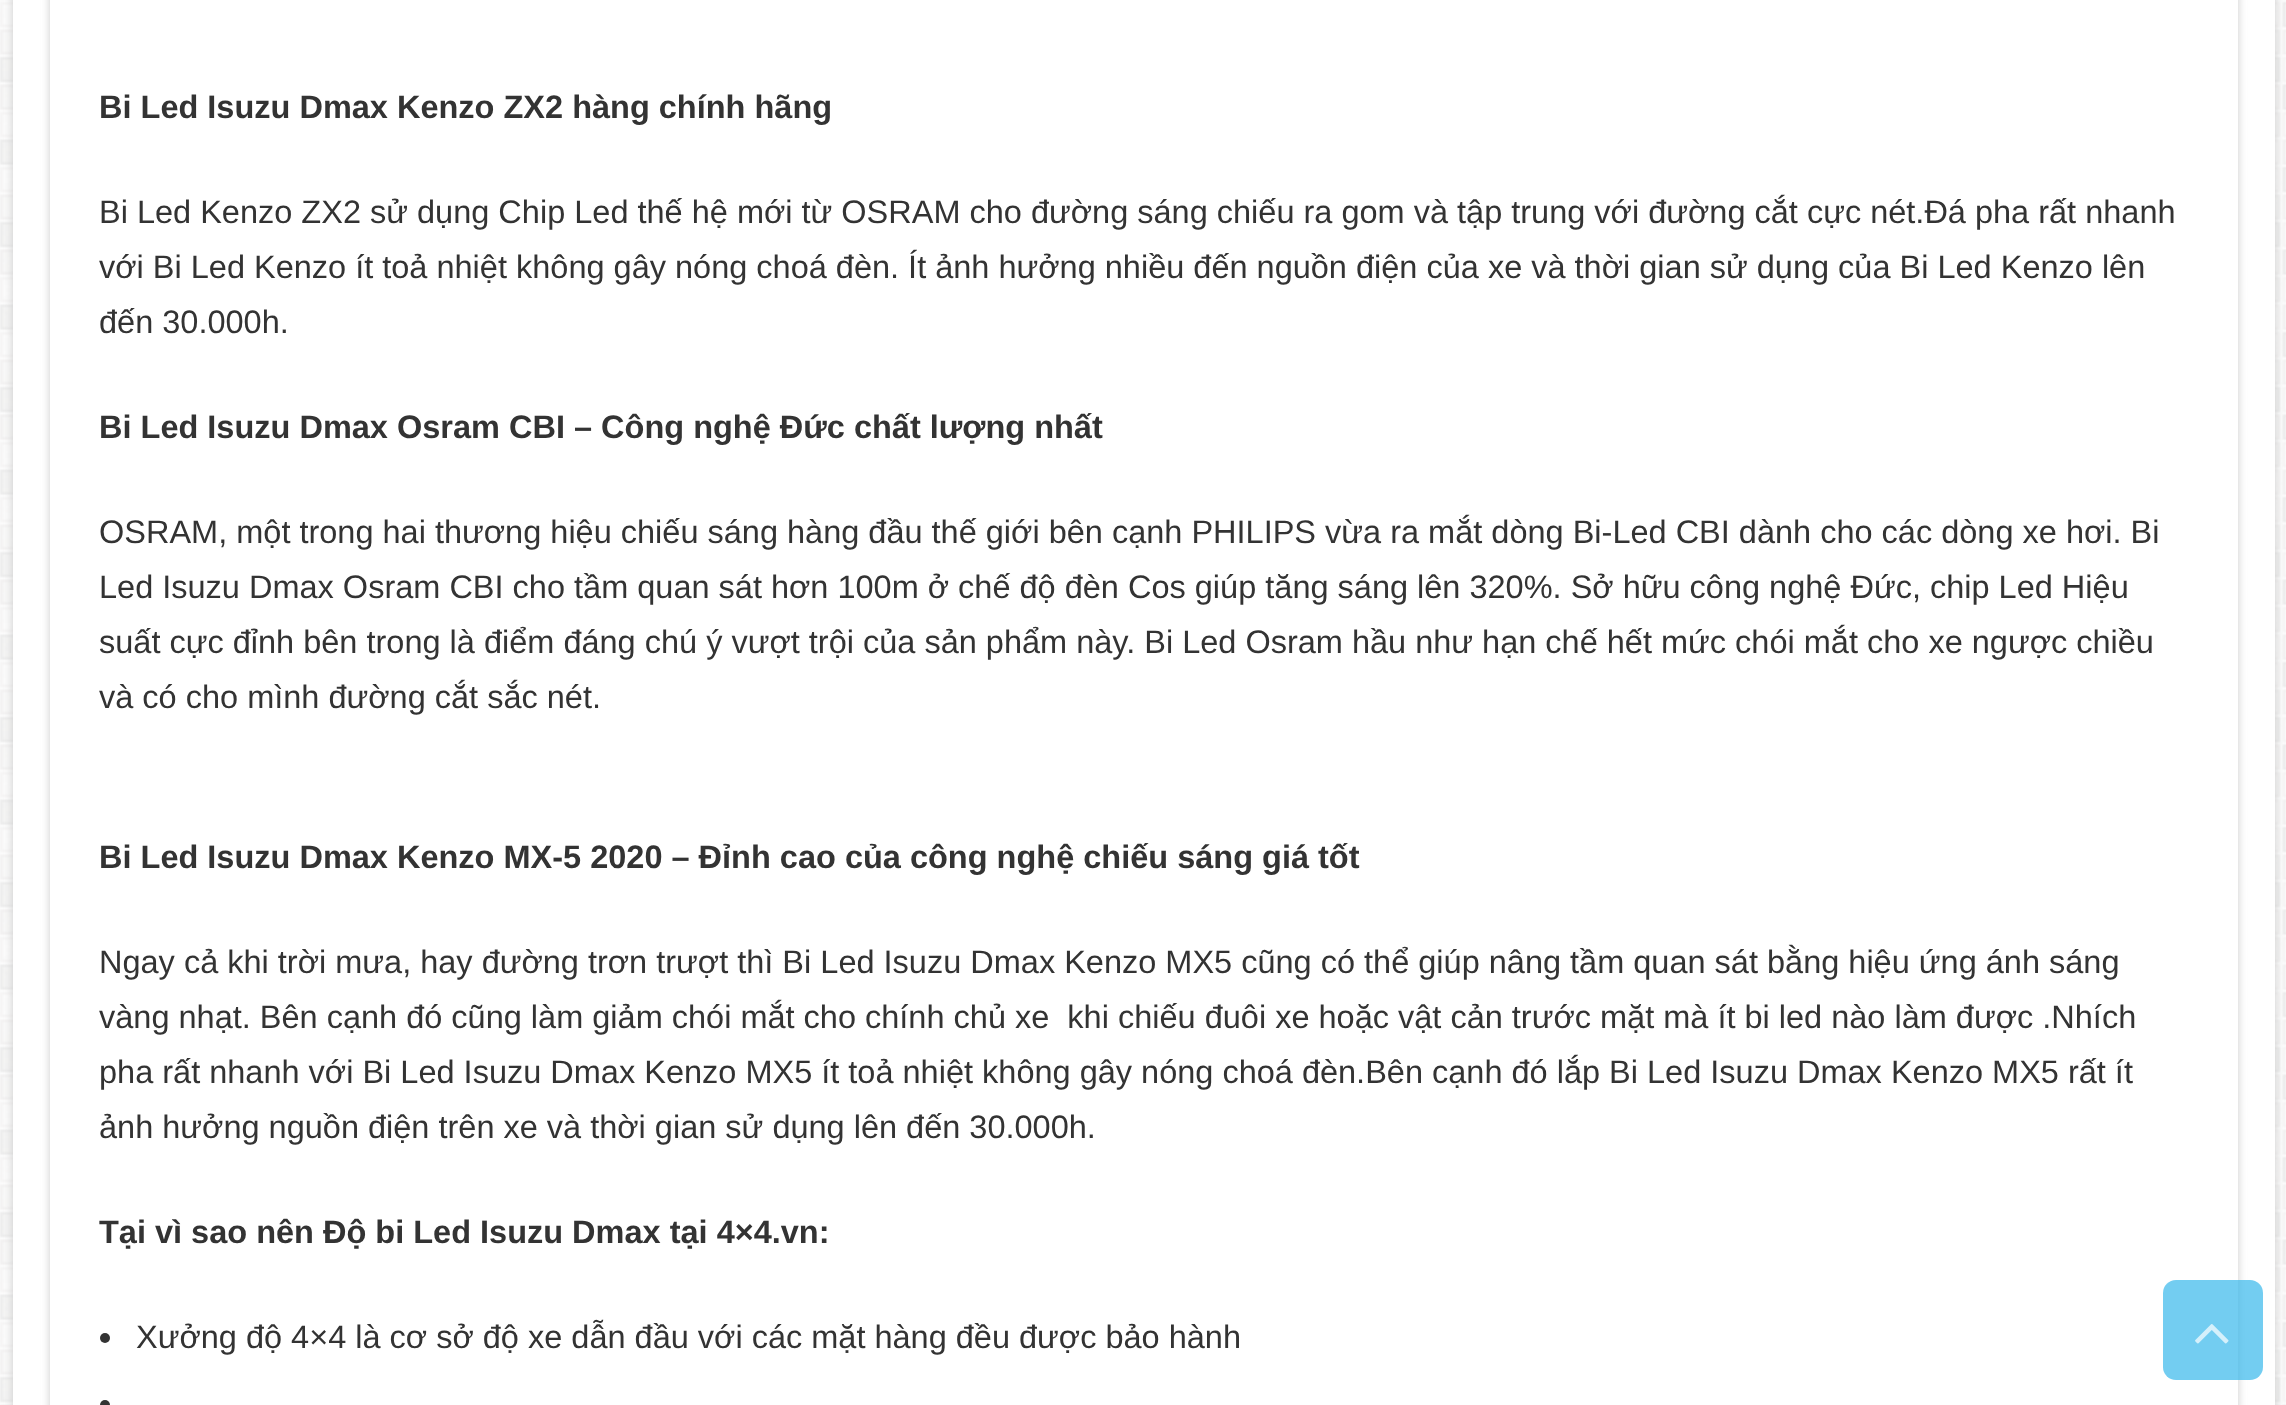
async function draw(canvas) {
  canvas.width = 2286
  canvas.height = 1405
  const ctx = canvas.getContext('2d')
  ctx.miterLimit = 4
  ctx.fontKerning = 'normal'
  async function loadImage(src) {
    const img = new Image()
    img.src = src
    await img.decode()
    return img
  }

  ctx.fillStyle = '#fff'
  ctx.fillRect(0, 0, 2286, 1405)
  ctx.drawImage(await loadImage('image0.png'), 0, 0, 2286, 1405)
  ctx.fillStyle = '#cacaca'
  ctx.filter = 'blur(4px)'
  ctx.beginPath()
  ctx.rect(13, -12, 2262, 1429)
  ctx.fill()
  ctx.filter = 'none'
  ctx.fillStyle = '#fff'
  ctx.fillRect(13, 0, 2262, 1405)
  ctx.fillStyle = '#cacaca'
  ctx.filter = 'blur(4px)'
  ctx.beginPath()
  ctx.rect(50, -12, 2188, 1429)
  ctx.fill()
  ctx.filter = 'none'
  ctx.fillStyle = '#fff'
  ctx.fillRect(50, 0, 2188, 1405)
  ctx.font = 'bold 32.5px Liberation Sans'
  ctx.fillStyle = '#333'
  ctx.fillText('Bi Led Isuzu Dmax Kenzo ZX2 hàng chính hãng', 99, 118)
  ctx.font = '32.5px Liberation Sans'
  ctx.fillText('Bi Led Kenzo ZX2 sử dụng Chip Led thế hệ mới từ OSRAM cho đường sáng chiếu ra gom và tập trung với đường cắt cực nét.Đá pha rất nhanh', 99, 223)
  ctx.fillText('với Bi Led Kenzo ít toả nhiệt không gây nóng choá đèn. Ít ảnh hưởng nhiều đến nguồn điện của xe và thời gian sử dụng của Bi Led Kenzo lên', 99, 278)
  ctx.fillText('đến 30.000h.', 99, 333)
  ctx.font = 'bold 32.5px Liberation Sans'
  ctx.fillText('Bi Led Isuzu Dmax Osram CBI – Công nghệ Đức chất lượng nhất', 99, 438)
  ctx.font = '32.5px Liberation Sans'
  ctx.fillText('OSRAM, một trong hai thương hiệu chiếu sáng hàng đầu thế giới bên cạnh PHILIPS vừa ra mắt dòng Bi-Led CBI dành cho các dòng xe hơi. Bi', 99, 543)
  ctx.fillText('Led Isuzu Dmax Osram CBI cho tầm quan sát hơn 100m ở chế độ đèn Cos giúp tăng sáng lên 320%. Sở hữu công nghệ Đức, chip Led Hiệu', 99, 598)
  ctx.fillText('suất cực đỉnh bên trong là điểm đáng chú ý vượt trội của sản phẩm này. Bi Led Osram hầu như hạn chế hết mức chói mắt cho xe ngược chiều', 99, 653)
  ctx.fillText('và có cho mình đường cắt sắc nét.', 99, 708)
  ctx.font = 'bold 32.5px Liberation Sans'
  ctx.fillText('Bi Led Isuzu Dmax Kenzo MX-5 2020 – Đỉnh cao của công nghệ chiếu sáng giá tốt', 99, 868)
  ctx.font = '32.5px Liberation Sans'
  ctx.fillText('Ngay cả khi trời mưa, hay đường trơn trượt thì Bi Led Isuzu Dmax Kenzo MX5 cũng có thể giúp nâng tầm quan sát bằng hiệu ứng ánh sáng', 99, 973)
  ctx.fillText('vàng nhạt. Bên cạnh đó cũng làm giảm chói mắt cho chính chủ xe  khi chiếu đuôi xe hoặc vật cản trước mặt mà ít bi led nào làm được .Nhích', 99, 1028)
  ctx.fillText('pha rất nhanh với Bi Led Isuzu Dmax Kenzo MX5 ít toả nhiệt không gây nóng choá đèn.Bên cạnh đó lắp Bi Led Isuzu Dmax Kenzo MX5 rất ít', 99, 1083)
  ctx.fillText('ảnh hưởng nguồn điện trên xe và thời gian sử dụng lên đến 30.000h.', 99, 1138)
  ctx.font = 'bold 32.5px Liberation Sans'
  ctx.fillText('Tại vì sao nên Độ bi Led Isuzu Dmax tại 4×4.vn:', 99, 1243)
  ctx.beginPath()
  ctx.arc(105, 1338, 5, 0, 2 * Math.PI)
  ctx.fill()
  ctx.font = '32.5px Liberation Sans'
  ctx.fillText('Xưởng độ 4×4 là cơ sở độ xe dẫn đầu với các mặt hàng đều được bảo hành', 136, 1348)
  ctx.beginPath()
  ctx.arc(105, 1405, 5, 0, 2 * Math.PI)
  ctx.fill()
  ctx.fillStyle = '#37b8ebb3'
  ctx.beginPath()
  ctx.roundRect(2163, 1280, 100, 100, 13)
  ctx.fill()
  ctx.drawImage(await loadImage('image1.png'), 2195, 1324, 34, 20)
}

draw(document.querySelector('canvas'))
